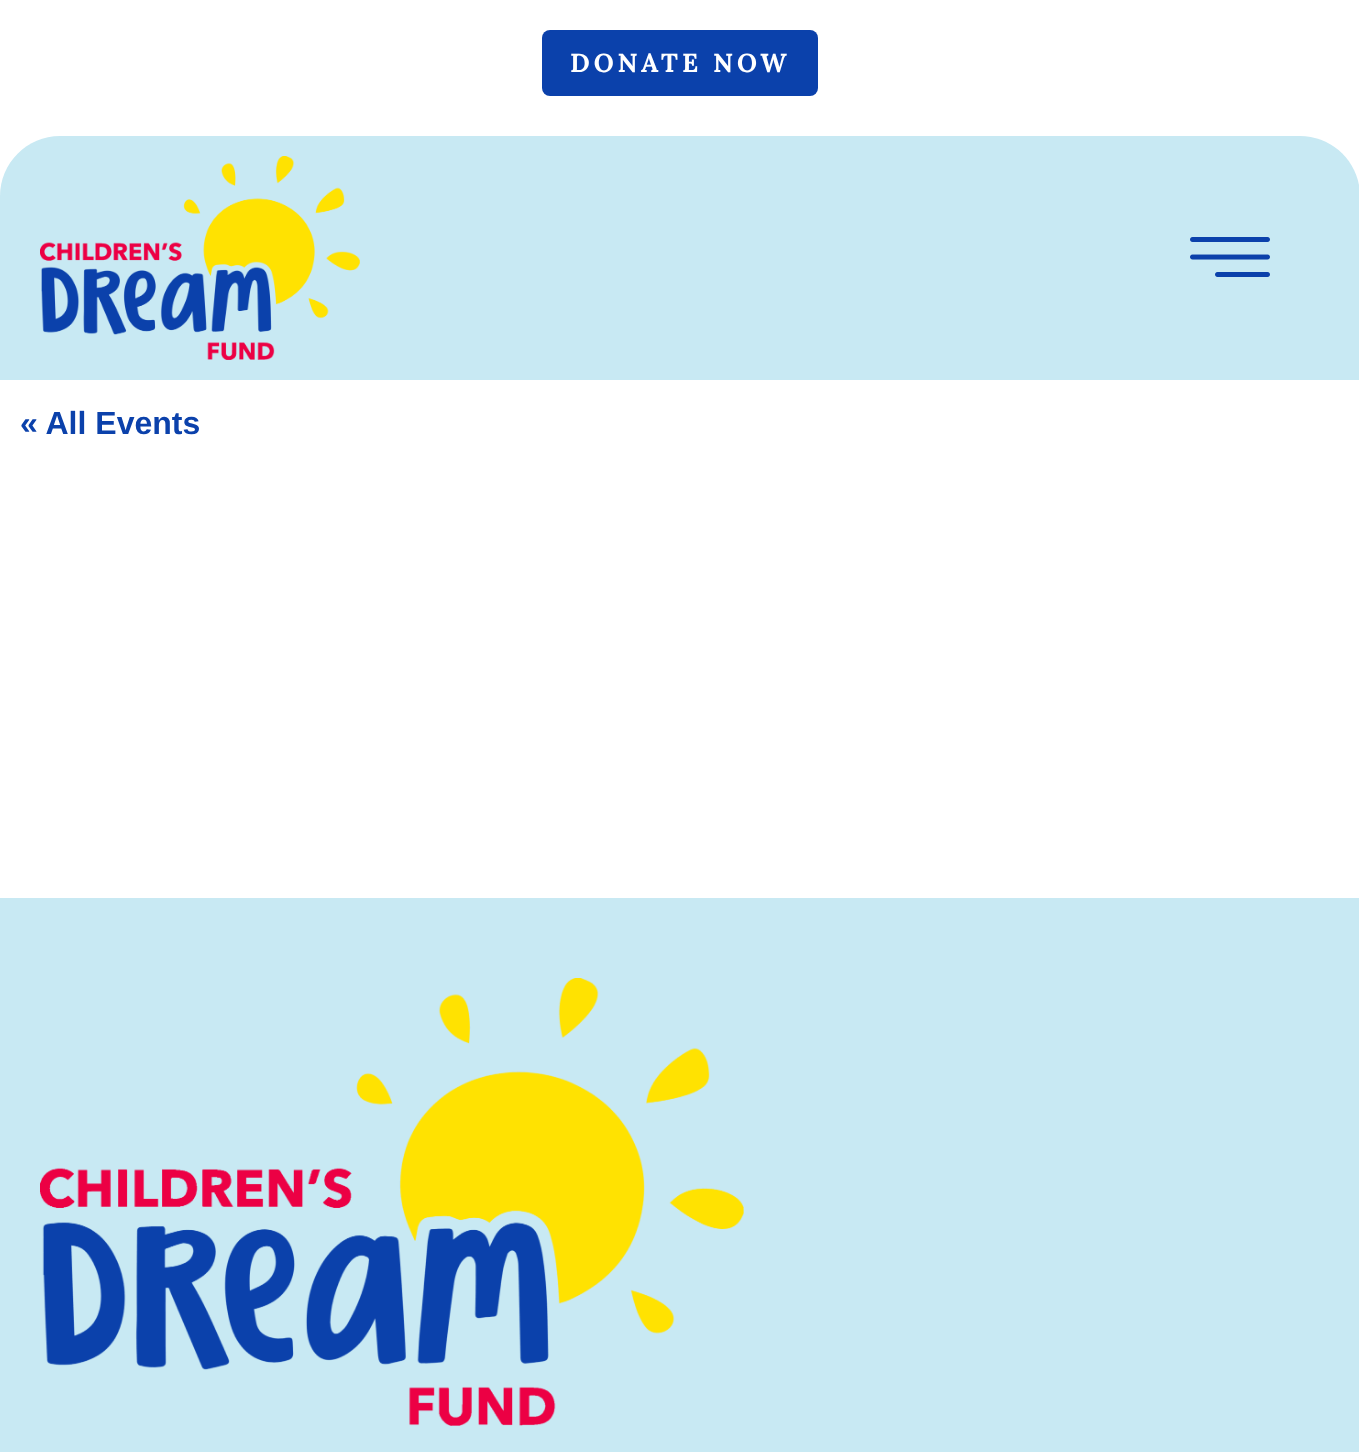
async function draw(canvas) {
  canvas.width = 1359
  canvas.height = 1452
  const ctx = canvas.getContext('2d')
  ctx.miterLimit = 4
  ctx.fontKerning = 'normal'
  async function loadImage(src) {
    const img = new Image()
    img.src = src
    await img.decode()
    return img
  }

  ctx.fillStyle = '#fff'
  ctx.fillRect(0, 0, 1359, 1452)
  ctx.fillStyle = '#0b41ab'
  ctx.beginPath()
  ctx.roundRect(542, 30, 276, 66, 8)
  ctx.fill()
  ctx.letterSpacing = '4px'
  ctx.font = 'bold 26px Lora'
  ctx.fillStyle = '#fff'
  ctx.fillText('DONATE NOW', 570, 72)
  ctx.fillStyle = '#c8e9f3'
  ctx.beginPath()
  ctx.moveTo(60, 136)
  ctx.lineTo(1300, 136)
  ctx.bezierCurveTo(1333, 136, 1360, 163, 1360, 196)
  ctx.lineTo(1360, 380)
  ctx.lineTo(0, 380)
  ctx.lineTo(0, 196)
  ctx.bezierCurveTo(0, 163, 27, 136, 60, 136)
  ctx.closePath()
  ctx.fill()
  ctx.drawImage(await loadImage('image0.png'), 40, 156, 320, 204)
  ctx.drawImage(await loadImage('image1.png'), 1190, 237, 80, 40)
  ctx.letterSpacing = '0px'
  ctx.font = 'bold 32px Liberation Sans'
  ctx.fillStyle = '#0b41ab'
  ctx.fillText('« All Events', 20, 434)
  ctx.fillStyle = '#c8e9f3'
  ctx.fillRect(0, 898, 1359, 554)
  ctx.drawImage(await loadImage('image2.png'), 40, 978, 704, 448)
}

draw(document.querySelector('canvas'))
